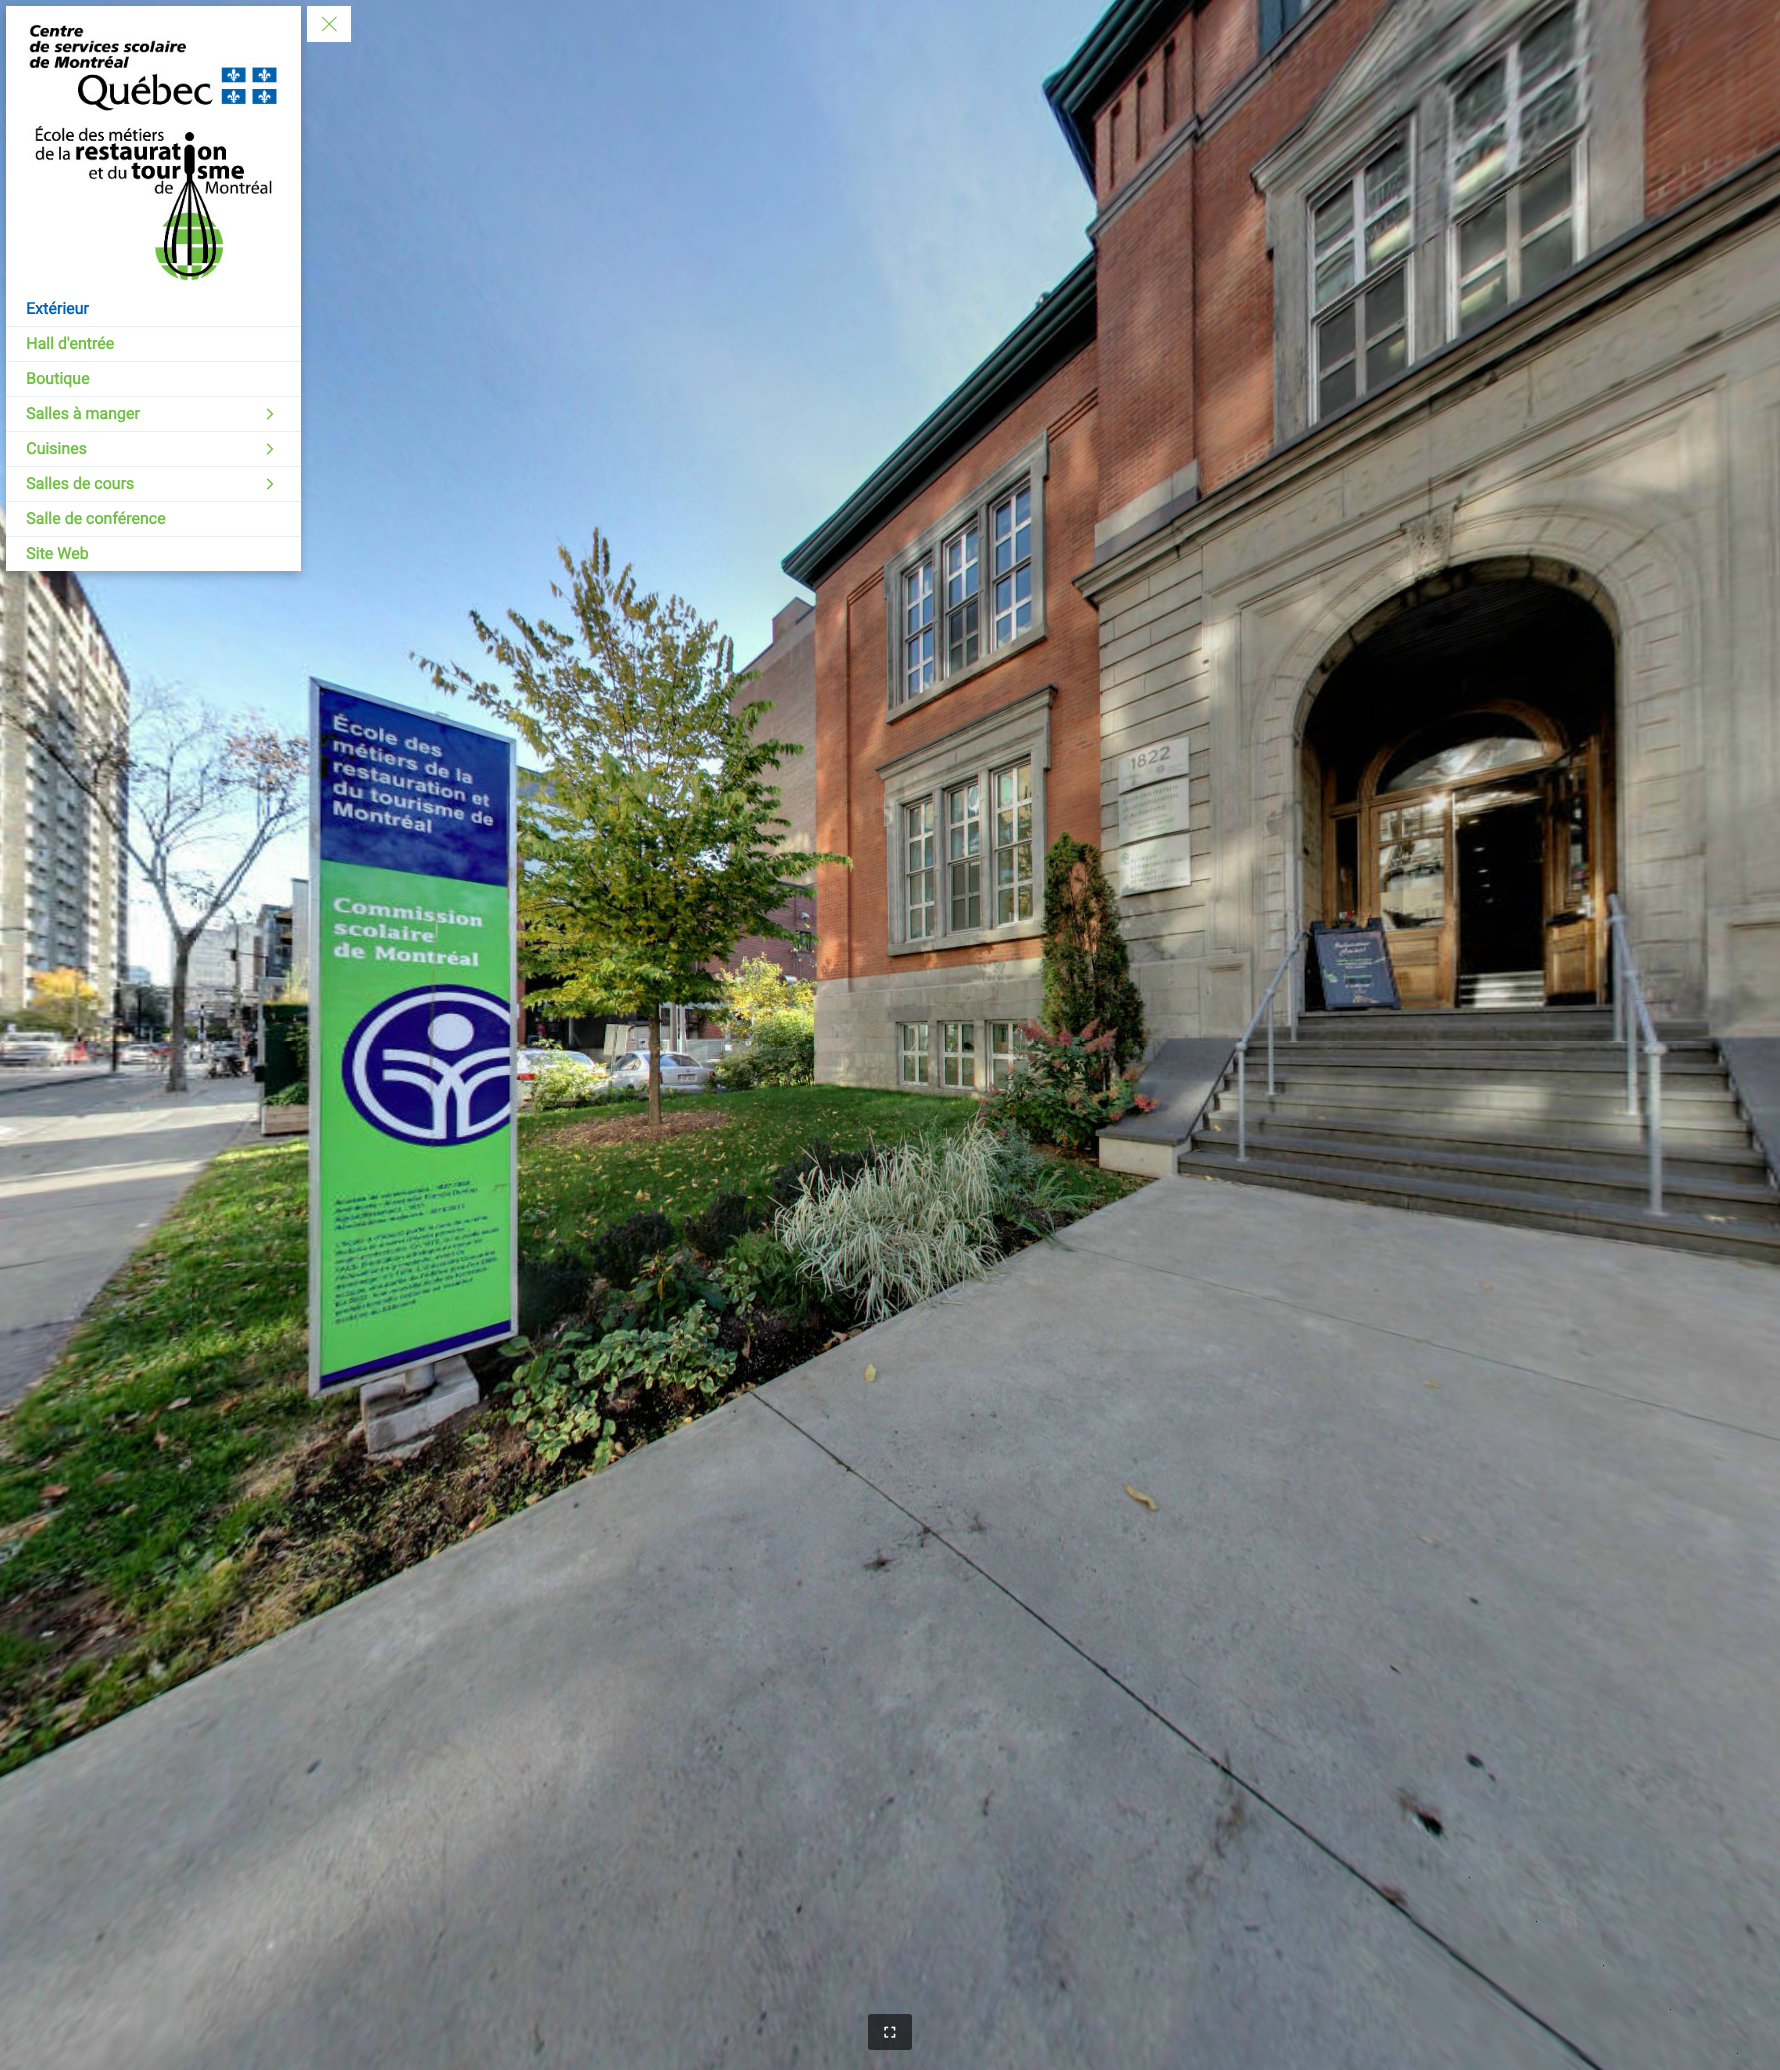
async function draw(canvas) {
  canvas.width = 1780
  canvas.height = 2070
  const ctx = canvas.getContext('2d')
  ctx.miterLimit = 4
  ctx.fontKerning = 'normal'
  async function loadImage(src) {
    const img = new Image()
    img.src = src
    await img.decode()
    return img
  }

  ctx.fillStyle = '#000'
  ctx.fillRect(0, 0, 1780, 2070)
  ctx.drawImage(await loadImage('image0.png'), 0, 0, 1780, 2070)
  ctx.fillStyle = '#00000033'
  ctx.filter = 'blur(5px)'
  ctx.beginPath()
  ctx.rect(6, 11, 295, 565)
  ctx.fill()
  ctx.filter = 'none'
  ctx.fillStyle = '#fff'
  ctx.fillRect(6, 6, 295, 565)
  ctx.drawImage(await loadImage('image1.png'), 25, 24, 257, 258)
  ctx.fillRect(307, 6, 44, 36)
  ctx.fillStyle = '#71bf44'
  ctx.beginPath()
  ctx.moveTo(322.5, 16.5)
  ctx.lineTo(337, 31)
  ctx.lineTo(336, 31.5)
  ctx.lineTo(322, 17.5)
  ctx.closePath()
  ctx.fill()
  ctx.beginPath()
  ctx.moveTo(322, 30.5)
  ctx.lineTo(336, 16.5)
  ctx.lineTo(337, 17)
  ctx.lineTo(322.5, 31.5)
  ctx.closePath()
  ctx.fill()
  ctx.fillStyle = '#e6eff7'
  ctx.fillRect(6, 326, 295, 1)
  ctx.font = 'bold 16px Roboto'
  ctx.fillStyle = '#0062b2'
  ctx.fillText('Extérieur', 26, 314)
  ctx.fillStyle = '#e6eff7'
  ctx.fillRect(6, 361, 295, 1)
  ctx.fillStyle = '#71bf44'
  ctx.fillText('Hall d\'entrée', 26, 349)
  ctx.fillStyle = '#e6eff7'
  ctx.fillRect(6, 396, 295, 1)
  ctx.fillStyle = '#71bf44'
  ctx.fillText('Boutique', 26, 384)
  ctx.fillStyle = '#e6eff7'
  ctx.fillRect(6, 431, 295, 1)
  ctx.fillStyle = '#71bf44'
  ctx.fillText('Salles à manger', 26, 419)
  ctx.drawImage(await loadImage('image2.png'), 266, 408, 8, 12)
  ctx.fillStyle = '#e6eff7'
  ctx.fillRect(6, 466, 295, 1)
  ctx.fillStyle = '#71bf44'
  ctx.fillText('Cuisines', 26, 454)
  ctx.drawImage(await loadImage('image2.png'), 266, 443, 8, 12)
  ctx.fillStyle = '#e6eff7'
  ctx.fillRect(6, 501, 295, 1)
  ctx.fillStyle = '#71bf44'
  ctx.fillText('Salles de cours', 26, 489)
  ctx.drawImage(await loadImage('image2.png'), 266, 478, 8, 12)
  ctx.fillStyle = '#e6eff7'
  ctx.fillRect(6, 536, 295, 1)
  ctx.fillStyle = '#71bf44'
  ctx.fillText('Salle de conférence', 26, 524)
  ctx.fillText('Site Web', 26, 559)
  ctx.fillStyle = '#0a0a0aa8'
  ctx.beginPath()
  ctx.roundRect(868, 2014, 44, 36, 3)
  ctx.fill()
  ctx.drawImage(await loadImage('image3.png'), 884, 2026, 12, 12)
}

draw(document.querySelector('canvas'))
